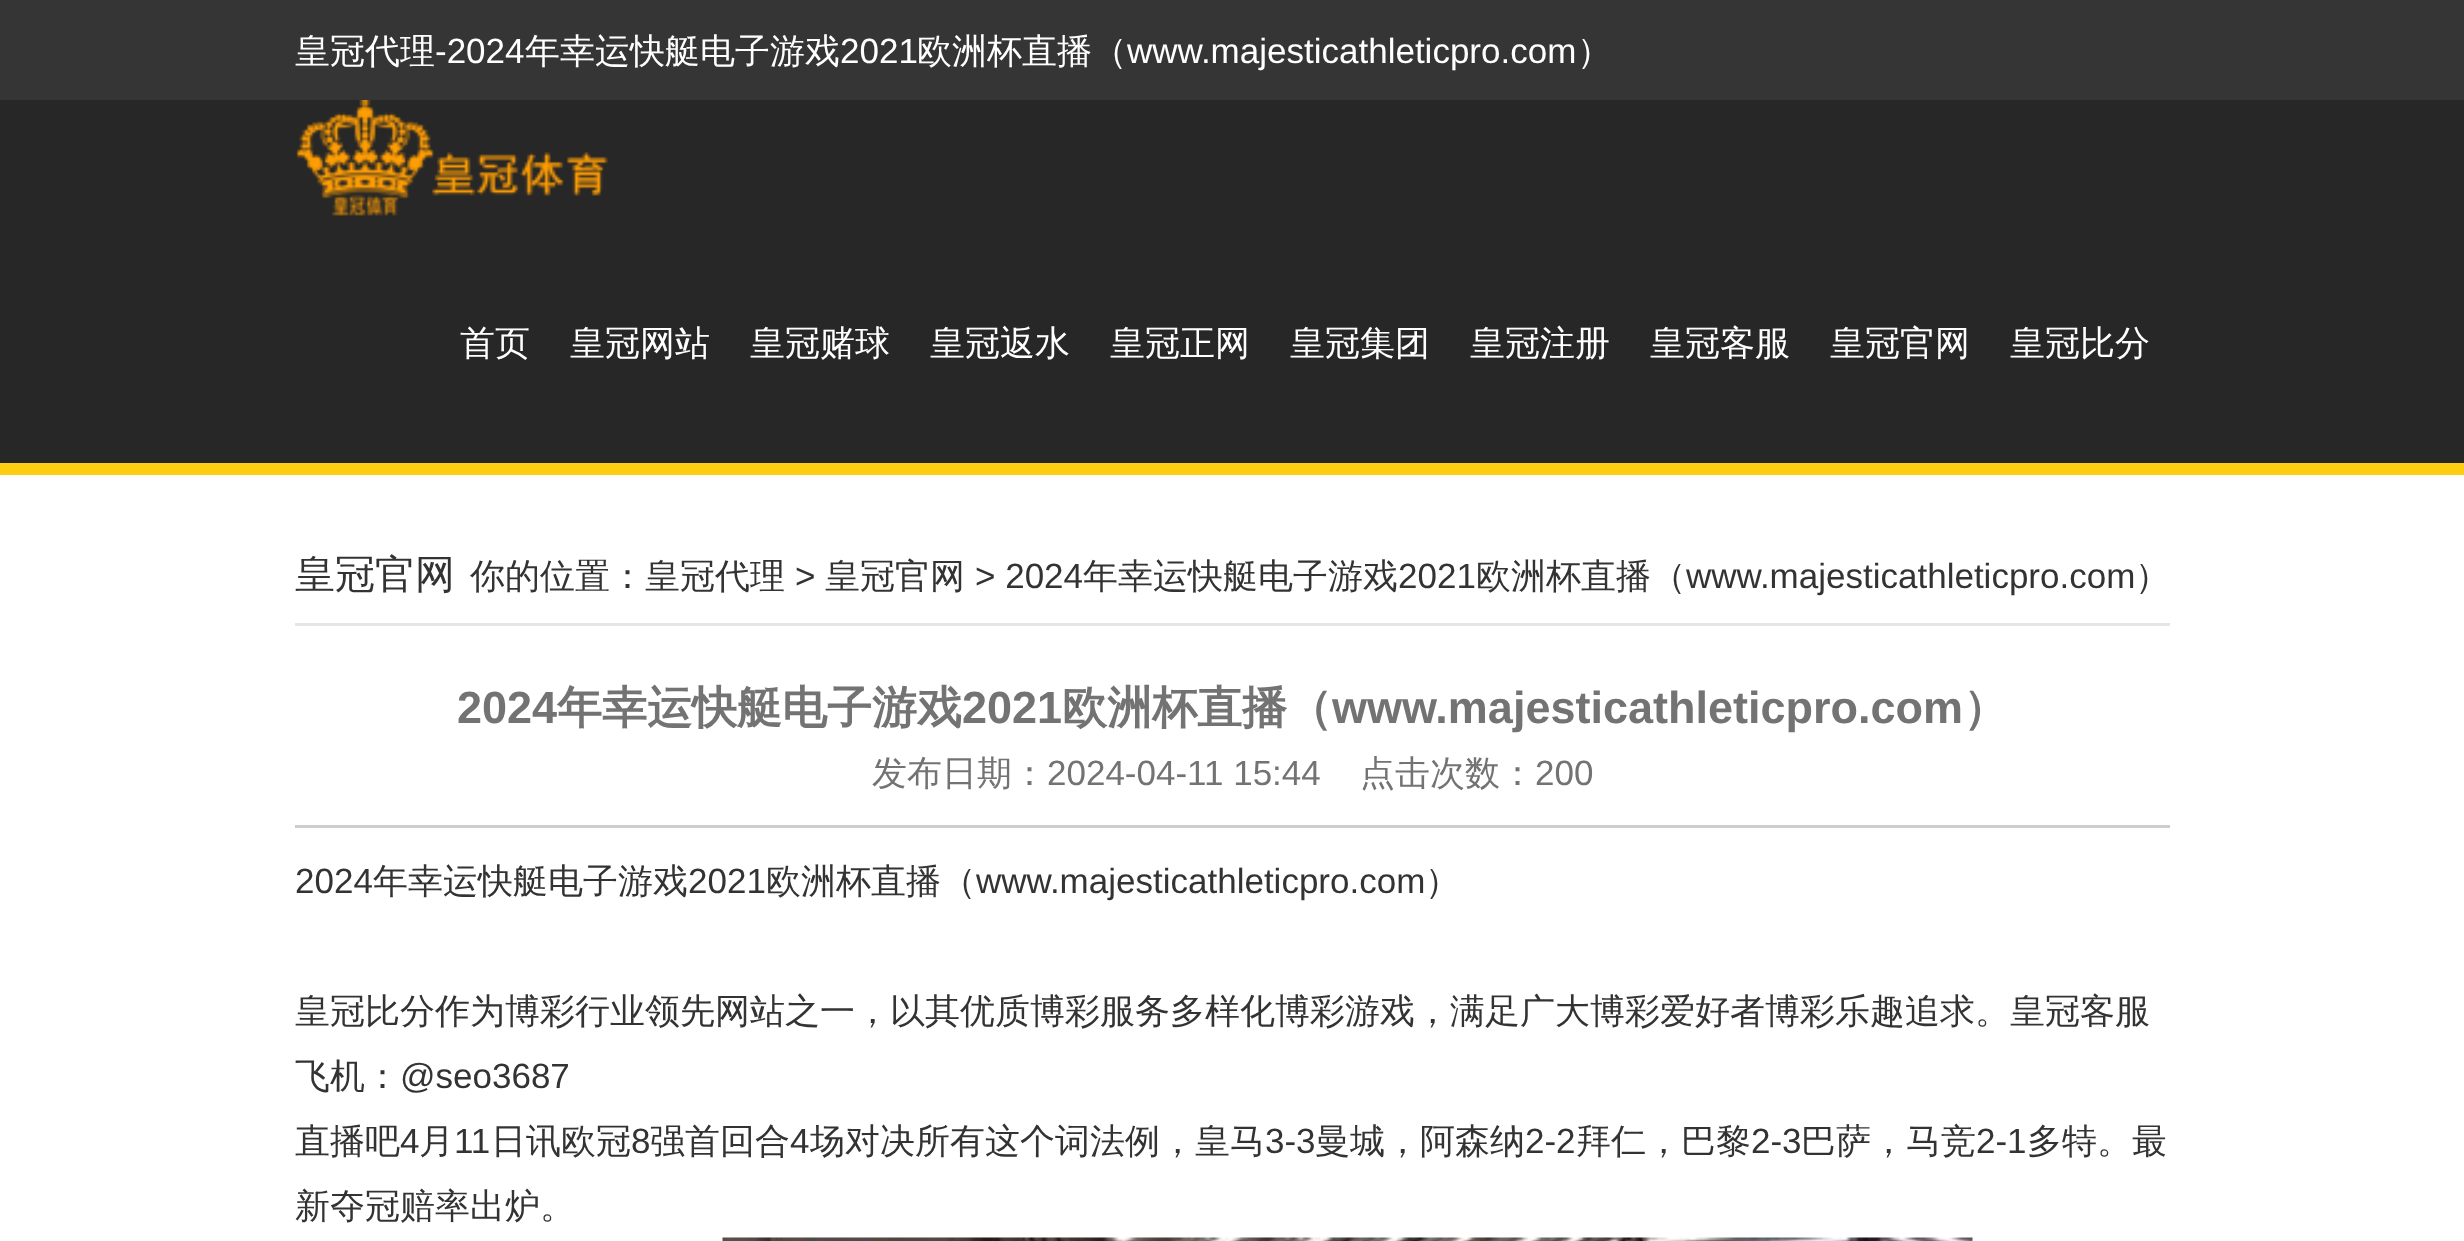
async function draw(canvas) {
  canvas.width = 2464
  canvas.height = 1241
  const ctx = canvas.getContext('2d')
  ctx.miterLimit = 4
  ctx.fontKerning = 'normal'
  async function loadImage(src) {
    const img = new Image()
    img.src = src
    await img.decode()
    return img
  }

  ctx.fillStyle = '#fff'
  ctx.fillRect(0, 0, 2464, 1241)
  ctx.fillStyle = '#353535'
  ctx.fillRect(0, 0, 2464, 100)
  ctx.font = '500 35px WenQuanYi Zen Hei'
  ctx.fillStyle = '#fff'
  ctx.fillText('皇冠代理', 295, 63)
  ctx.font = '35px Liberation Sans'
  ctx.fillText('-2024', 435, 63)
  ctx.font = '500 35px WenQuanYi Zen Hei'
  ctx.fillText('年幸运快艇电子游戏', 525, 63)
  ctx.font = '35px Liberation Sans'
  ctx.fillText('2021', 840, 63)
  ctx.font = '500 35px WenQuanYi Zen Hei'
  ctx.fillText('欧洲杯直播（', 917, 63)
  ctx.font = '35px Liberation Sans'
  ctx.fillText('www.majesticathleticpro.com', 1127, 63)
  ctx.font = '500 35px WenQuanYi Zen Hei'
  ctx.fillText('）', 1577, 63)
  ctx.fillStyle = '#272727'
  ctx.fillRect(0, 100, 2464, 363)
  ctx.fillStyle = '#ffcd11'
  ctx.fillRect(0, 463, 2464, 12)
  ctx.drawImage(await loadImage('image0.png'), 296, 100, 312, 116)
  ctx.fillStyle = '#fff'
  ctx.fillText('首页', 460, 355)
  ctx.fillText('皇冠网站', 570, 355)
  ctx.fillText('皇冠赌球', 750, 355)
  ctx.fillText('皇冠返水', 930, 355)
  ctx.fillText('皇冠正网', 1110, 355)
  ctx.fillText('皇冠集团', 1290, 355)
  ctx.fillText('皇冠注册', 1470, 355)
  ctx.fillText('皇冠客服', 1650, 355)
  ctx.fillText('皇冠官网', 1830, 355)
  ctx.fillText('皇冠比分', 2010, 355)
  ctx.fillStyle = '#e5e5e5'
  ctx.fillRect(295, 623, 1875, 3)
  ctx.font = '500 40px WenQuanYi Zen Hei'
  ctx.fillStyle = '#333'
  ctx.fillText('皇冠官网', 295, 588)
  ctx.font = '500 35px WenQuanYi Zen Hei'
  ctx.fillText('你的位置：皇冠代理', 470, 588)
  ctx.font = '35px Liberation Sans'
  ctx.fillText('>', 795, 588)
  ctx.font = '500 35px WenQuanYi Zen Hei'
  ctx.fillText('皇冠官网', 825, 588)
  ctx.font = '35px Liberation Sans'
  ctx.fillText('> 2024', 975, 588)
  ctx.font = '500 35px WenQuanYi Zen Hei'
  ctx.fillText('年幸运快艇电子游戏', 1083, 588)
  ctx.font = '35px Liberation Sans'
  ctx.fillText('2021', 1398, 588)
  ctx.font = '500 35px WenQuanYi Zen Hei'
  ctx.fillText('欧洲杯直播（', 1476, 588)
  ctx.font = '35px Liberation Sans'
  ctx.fillText('www.majesticathleticpro.com', 1686, 588)
  ctx.font = '500 35px WenQuanYi Zen Hei'
  ctx.fillText('）', 2135, 588)
  ctx.font = 'bold 45px Liberation Sans'
  ctx.fillStyle = '#737373'
  ctx.fillText('2024', 457, 723)
  ctx.font = 'bold 45px WenQuanYi Zen Hei'
  ctx.fillText('年幸运快艇电子游戏', 557, 723)
  ctx.font = 'bold 45px Liberation Sans'
  ctx.fillText('2021', 962, 723)
  ctx.font = 'bold 45px WenQuanYi Zen Hei'
  ctx.fillText('欧洲杯直播（', 1062, 723)
  ctx.font = 'bold 45px Liberation Sans'
  ctx.fillText('www.majesticathleticpro.com', 1332, 723)
  ctx.font = 'bold 45px WenQuanYi Zen Hei'
  ctx.fillText('）', 1963, 723)
  ctx.fillStyle = '#cdcdcd'
  ctx.fillRect(295, 825, 1875, 3)
  ctx.font = '500 35px WenQuanYi Zen Hei'
  ctx.fillStyle = '#737373'
  ctx.fillText('发布日期：', 872, 785)
  ctx.font = '35px Liberation Sans'
  ctx.fillText('2024-04-11 15:44', 1047, 785)
  ctx.font = '500 35px WenQuanYi Zen Hei'
  ctx.fillText('点击次数：', 1360, 785)
  ctx.font = '35px Liberation Sans'
  ctx.fillText('200', 1535, 785)
  ctx.fillStyle = '#333'
  ctx.fillText('2024', 295, 893)
  ctx.font = '500 35px WenQuanYi Zen Hei'
  ctx.fillText('年幸运快艇电子游戏', 373, 893)
  ctx.font = '35px Liberation Sans'
  ctx.fillText('2021', 688, 893)
  ctx.font = '500 35px WenQuanYi Zen Hei'
  ctx.fillText('欧洲杯直播（', 766, 893)
  ctx.font = '35px Liberation Sans'
  ctx.fillText('www.majesticathleticpro.com', 976, 893)
  ctx.font = '500 35px WenQuanYi Zen Hei'
  ctx.fillText('）', 1425, 893)
  ctx.fillText('皇冠比分作为博彩行业领先网站之一，以其优质博彩服务多样化博彩游戏，满足广大博彩爱好者博彩乐趣追求。皇冠客服', 295, 1023)
  ctx.fillText('飞机：', 295, 1088)
  ctx.font = '35px Liberation Sans'
  ctx.fillText('@seo3687', 400, 1088)
  ctx.font = '500 35px WenQuanYi Zen Hei'
  ctx.fillText('直播吧', 295, 1153)
  ctx.font = '35px Liberation Sans'
  ctx.fillText('4', 400, 1153)
  ctx.font = '500 35px WenQuanYi Zen Hei'
  ctx.fillText('月', 419, 1153)
  ctx.font = '35px Liberation Sans'
  ctx.fillText('11', 454, 1153)
  ctx.font = '500 35px WenQuanYi Zen Hei'
  ctx.fillText('日讯欧冠', 491, 1153)
  ctx.font = '35px Liberation Sans'
  ctx.fillText('8', 631, 1153)
  ctx.font = '500 35px WenQuanYi Zen Hei'
  ctx.fillText('强首回合', 650, 1153)
  ctx.font = '35px Liberation Sans'
  ctx.fillText('4', 790, 1153)
  ctx.font = '500 35px WenQuanYi Zen Hei'
  ctx.fillText('场对决所有这个词法例，皇马', 810, 1153)
  ctx.font = '35px Liberation Sans'
  ctx.fillText('3-3', 1265, 1153)
  ctx.font = '500 35px WenQuanYi Zen Hei'
  ctx.fillText('曼城，阿森纳', 1315, 1153)
  ctx.font = '35px Liberation Sans'
  ctx.fillText('2-2', 1525, 1153)
  ctx.font = '500 35px WenQuanYi Zen Hei'
  ctx.fillText('拜仁，巴黎', 1576, 1153)
  ctx.font = '35px Liberation Sans'
  ctx.fillText('2-3', 1751, 1153)
  ctx.font = '500 35px WenQuanYi Zen Hei'
  ctx.fillText('巴萨，马竞', 1801, 1153)
  ctx.font = '35px Liberation Sans'
  ctx.fillText('2-1', 1976, 1153)
  ctx.font = '500 35px WenQuanYi Zen Hei'
  ctx.fillText('多特。最', 2027, 1153)
  ctx.fillText('新夺冠赔率出炉。', 295, 1218)
  ctx.drawImage(await loadImage('image1.png'), 722, 1237, 1251, 4)
}

draw(document.querySelector('canvas'))
